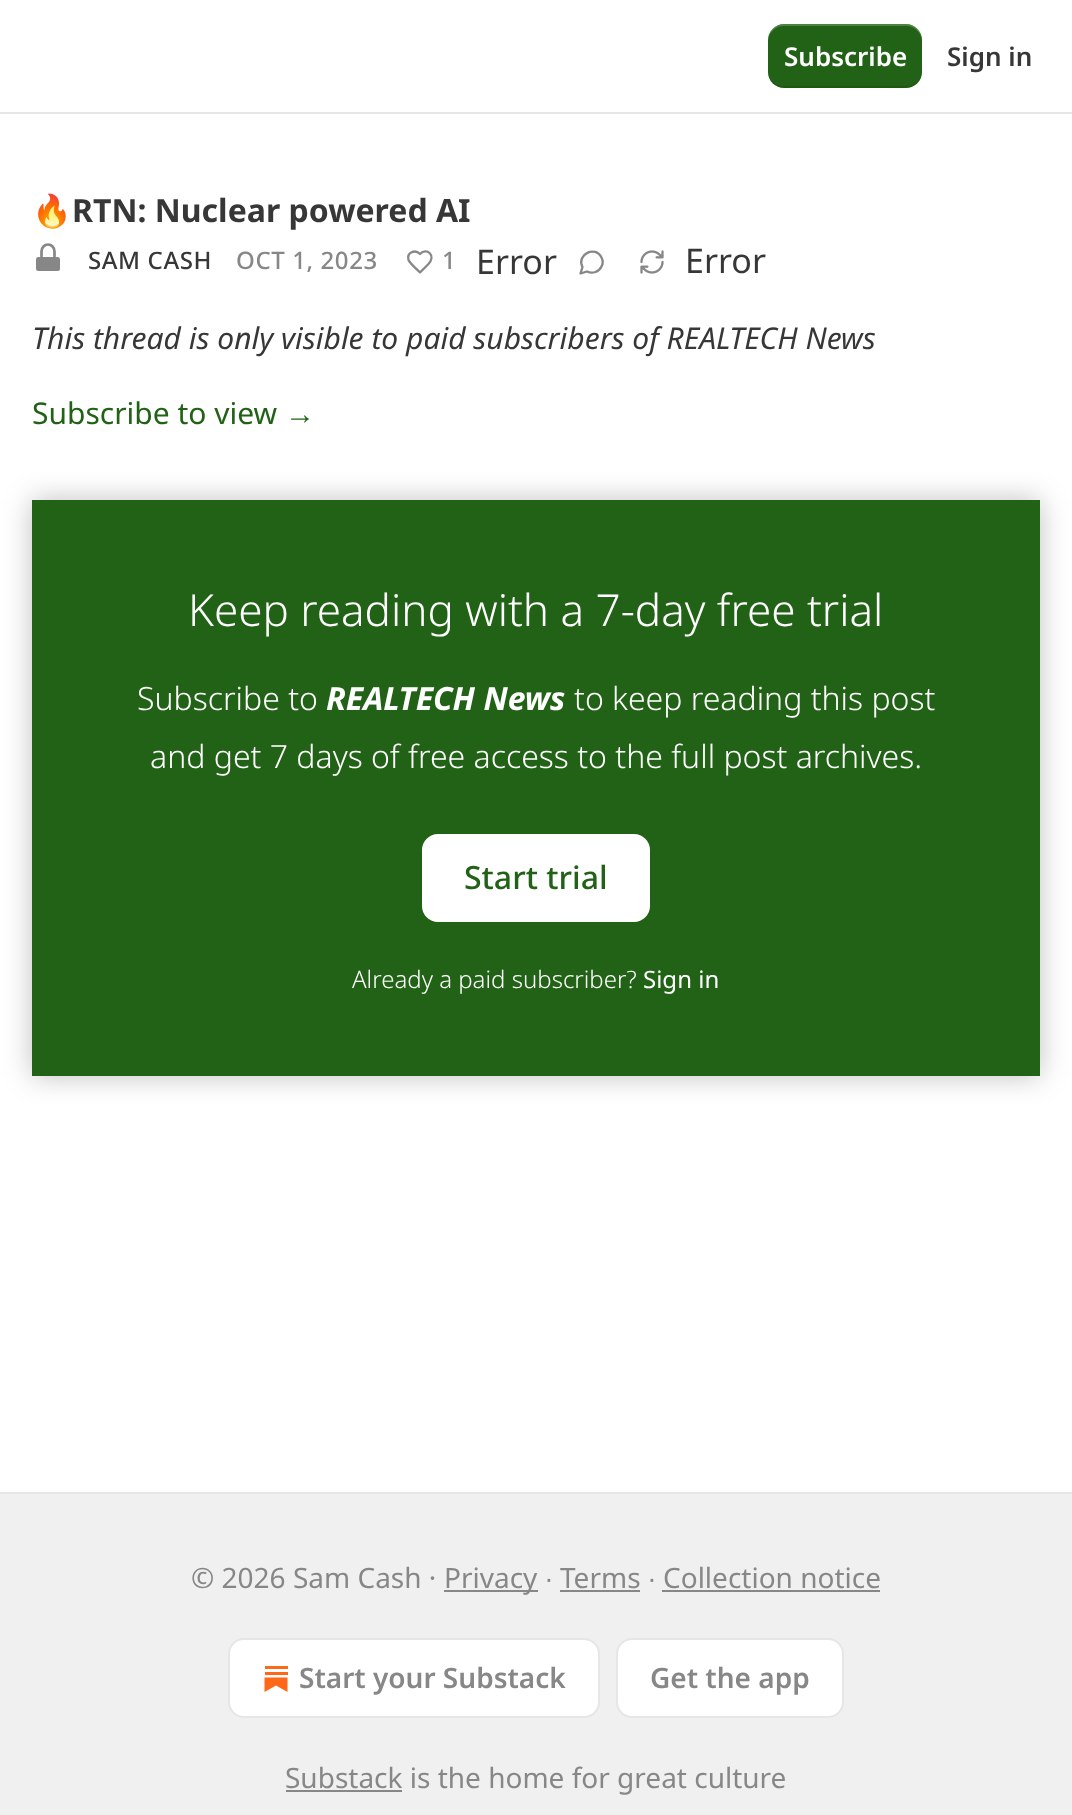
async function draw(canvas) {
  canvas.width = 1072
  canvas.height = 1815
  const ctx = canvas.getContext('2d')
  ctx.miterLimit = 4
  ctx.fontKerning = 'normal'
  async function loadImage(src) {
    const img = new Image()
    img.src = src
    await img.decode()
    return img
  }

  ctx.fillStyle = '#fff'
  ctx.fillRect(0, 0, 1072, 1815)
  ctx.fillStyle = '#e6e6e6'
  ctx.fillRect(0, 112, 1072, 2)
  ctx.fillStyle = '#226216'
  ctx.beginPath()
  ctx.roundRect(768, 24, 154, 64, 16)
  ctx.fill()
  ctx.fillStyle = '#0000001a'
  ctx.beginPath()
  ctx.moveTo(768, 70)
  ctx.bezierCurveTo(768, 92, 788, 88, 804, 88)
  ctx.lineTo(886, 88)
  ctx.bezierCurveTo(902, 88, 922, 92, 922, 70)
  ctx.bezierCurveTo(922, 79, 915, 86, 906, 86)
  ctx.lineTo(784, 86)
  ctx.bezierCurveTo(775, 86, 768, 79, 768, 70)
  ctx.closePath()
  ctx.fill()
  ctx.fillStyle = '#ffffff33'
  ctx.beginPath()
  ctx.moveTo(784, 26)
  ctx.lineTo(906, 26)
  ctx.bezierCurveTo(915, 26, 922, 33, 922, 42)
  ctx.bezierCurveTo(922, 20, 902, 24, 886, 24)
  ctx.lineTo(804, 24)
  ctx.bezierCurveTo(788, 24, 768, 20, 768, 42)
  ctx.bezierCurveTo(768, 33, 775, 26, 784, 26)
  ctx.closePath()
  ctx.fill()
  ctx.font = '600 26px Noto Sans'
  ctx.fillStyle = '#fff'
  ctx.fillText('Subscribe', 784, 66)
  ctx.fillStyle = '#363737'
  ctx.fillText('Sign in', 947, 66)
  ctx.font = 'bold 32px Noto Color Emoji'
  ctx.fillText('🔥', 32, 222)
  ctx.font = 'bold 32px Noto Sans'
  ctx.fillText('RTN: Nuclear powered AI', 72, 222)
  ctx.fillStyle = '#868787'
  ctx.beginPath()
  ctx.roundRect(36, 257, 24, 14, 2.5)
  ctx.fill()
  ctx.beginPath()
  ctx.moveTo(41.5, 256.5)
  ctx.lineTo(41.5, 251.5)
  ctx.bezierCurveTo(41.5, 247.5, 44.5, 244.5, 48, 244.5)
  ctx.bezierCurveTo(51.5, 244.5, 54.5, 247.5, 54.5, 251.5)
  ctx.lineTo(54.5, 256.5)
  ctx.strokeStyle = '#868787'
  ctx.lineWidth = 2.7
  ctx.lineCap = 'round'
  ctx.lineJoin = 'round'
  ctx.stroke()
  ctx.letterSpacing = '0.6px'
  ctx.font = '500 24px Noto Sans'
  ctx.fillStyle = '#363737'
  ctx.fillText('SAM CASH', 88, 269)
  ctx.fillStyle = '#868787'
  ctx.fillText('OCT 1, 2023', 236, 269)
  ctx.beginPath()
  ctx.moveTo(428, 264.5)
  ctx.bezierCurveTo(437, 255.5, 426.5, 247, 420, 254)
  ctx.bezierCurveTo(415, 249, 406.5, 252.5, 408.5, 260)
  ctx.bezierCurveTo(410, 263.5, 417.5, 270, 420, 272.5)
  ctx.closePath()
  ctx.lineWidth = 2.3
  ctx.stroke()
  ctx.fillText('1', 442, 269)
  ctx.letterSpacing = '0px'
  ctx.font = '34px Noto Sans'
  ctx.fillStyle = '#363737'
  ctx.fillText('Error', 476, 274)
  ctx.beginPath()
  ctx.moveTo(587, 271.5)
  ctx.bezierCurveTo(592.5, 274, 599, 272, 601.5, 266.5)
  ctx.bezierCurveTo(603, 264, 603, 260.5, 601.5, 257.5)
  ctx.bezierCurveTo(595.5, 245, 576, 254.5, 582.5, 267)
  ctx.lineTo(580.5, 273.5)
  ctx.closePath()
  ctx.stroke()
  ctx.drawImage(await loadImage('image0.png'), 640, 250, 24, 24)
  ctx.fillText('Error', 685, 273)
  ctx.font = 'italic 30px Noto Sans'
  ctx.fillText('This thread is only visible to paid subscribers of REALTECH News', 32, 349)
  ctx.font = '30px Noto Sans'
  ctx.fillStyle = '#226216'
  ctx.fillText('Subscribe to view', 32, 424)
  ctx.font = '30px Liberation Sans'
  ctx.fillText('→', 285, 424)
  ctx.fillRect(32, 500, 1008, 576)
  ctx.fillStyle = '#fff'
  ctx.beginPath()
  ctx.roundRect(423, 835, 226, 86, 15)
  ctx.fill()
  ctx.strokeStyle = '#fff'
  ctx.lineWidth = 2
  ctx.lineJoin = 'miter'
  ctx.stroke()
  ctx.save()
  ctx.beginPath()
  ctx.moveTo(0, 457)
  ctx.lineTo(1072, 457)
  ctx.lineTo(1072, 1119)
  ctx.lineTo(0, 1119)
  ctx.closePath()
  ctx.moveTo(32, 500)
  ctx.lineTo(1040, 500)
  ctx.lineTo(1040, 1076)
  ctx.lineTo(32, 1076)
  ctx.closePath()
  ctx.clip('evenodd')
  ctx.fillStyle = '#00000040'
  ctx.filter = 'blur(14px)'
  ctx.beginPath()
  ctx.rect(32, 500, 1008, 576)
  ctx.fill()
  ctx.filter = 'none'
  ctx.restore()
  ctx.font = '300 44px Noto Sans'
  ctx.fillText('Keep reading with a 7-day free trial', 188, 626)
  ctx.font = '300 32px Noto Sans'
  ctx.fillText('Subscribe to', 137, 710)
  ctx.font = 'italic bold 32px Noto Sans'
  ctx.fillText('REALTECH News', 326, 710)
  ctx.font = '300 32px Noto Sans'
  ctx.fillText('to keep reading this post', 574, 710)
  ctx.fillText('and get 7 days of free access to the full post archives.', 150, 768)
  ctx.font = '500 32px Noto Sans'
  ctx.fillStyle = '#226216'
  ctx.fillText('Start trial', 464, 889)
  ctx.font = '300 24px Noto Sans'
  ctx.fillStyle = '#fff'
  ctx.fillText('Already a paid subscriber?', 352, 988)
  ctx.font = '24px Noto Sans'
  ctx.fillText('Sign in', 643, 988)
  ctx.fillStyle = '#f0f0f0'
  ctx.fillRect(0, 1494, 1072, 321)
  ctx.fillStyle = '#e6e6e6'
  ctx.fillRect(0, 1492, 1072, 2)
  ctx.font = '28px Noto Sans'
  ctx.fillStyle = '#868787'
  ctx.fillText('© 2026 Sam Cash ·', 191, 1588)
  ctx.fillRect(444, 1590, 94, 2)
  ctx.fillText('Privacy', 444, 1588)
  ctx.font = '28px Liberation Sans'
  ctx.fillText('∙', 545, 1588)
  ctx.font = '28px Noto Sans'
  ctx.fillText('Terms', 560, 1588)
  ctx.fillRect(560, 1590, 80, 2)
  ctx.font = '28px Liberation Sans'
  ctx.fillText('∙', 648, 1588)
  ctx.font = '28px Noto Sans'
  ctx.fillText('Collection notice', 663, 1588)
  ctx.fillRect(662, 1590, 218, 2)
  ctx.fillStyle = '#fff'
  ctx.beginPath()
  ctx.roundRect(229, 1639, 370, 78, 15)
  ctx.fill()
  ctx.strokeStyle = '#e6e6e6'
  ctx.stroke()
  ctx.fillStyle = '#ff6719'
  ctx.fillRect(265, 1672, 23, 3)
  ctx.beginPath()
  ctx.moveTo(264.5, 1677.5)
  ctx.lineTo(264.5, 1692)
  ctx.lineTo(276, 1685.5)
  ctx.lineTo(287.5, 1692)
  ctx.lineTo(287.5, 1677.5)
  ctx.closePath()
  ctx.fill()
  ctx.fillRect(265, 1666, 23, 3)
  ctx.font = '600 28px Noto Sans'
  ctx.fillStyle = '#868787'
  ctx.fillText('Start your Substack', 299, 1688)
  ctx.fillStyle = '#fff'
  ctx.beginPath()
  ctx.roundRect(617, 1639, 226, 78, 15)
  ctx.fill()
  ctx.stroke()
  ctx.fillStyle = '#868787'
  ctx.fillText('Get the app', 650, 1688)
  ctx.fillRect(286, 1790, 116, 2)
  ctx.font = '28px Noto Sans'
  ctx.fillText('Substack is the home for great culture', 285, 1788)
}

draw(document.querySelector('canvas'))
